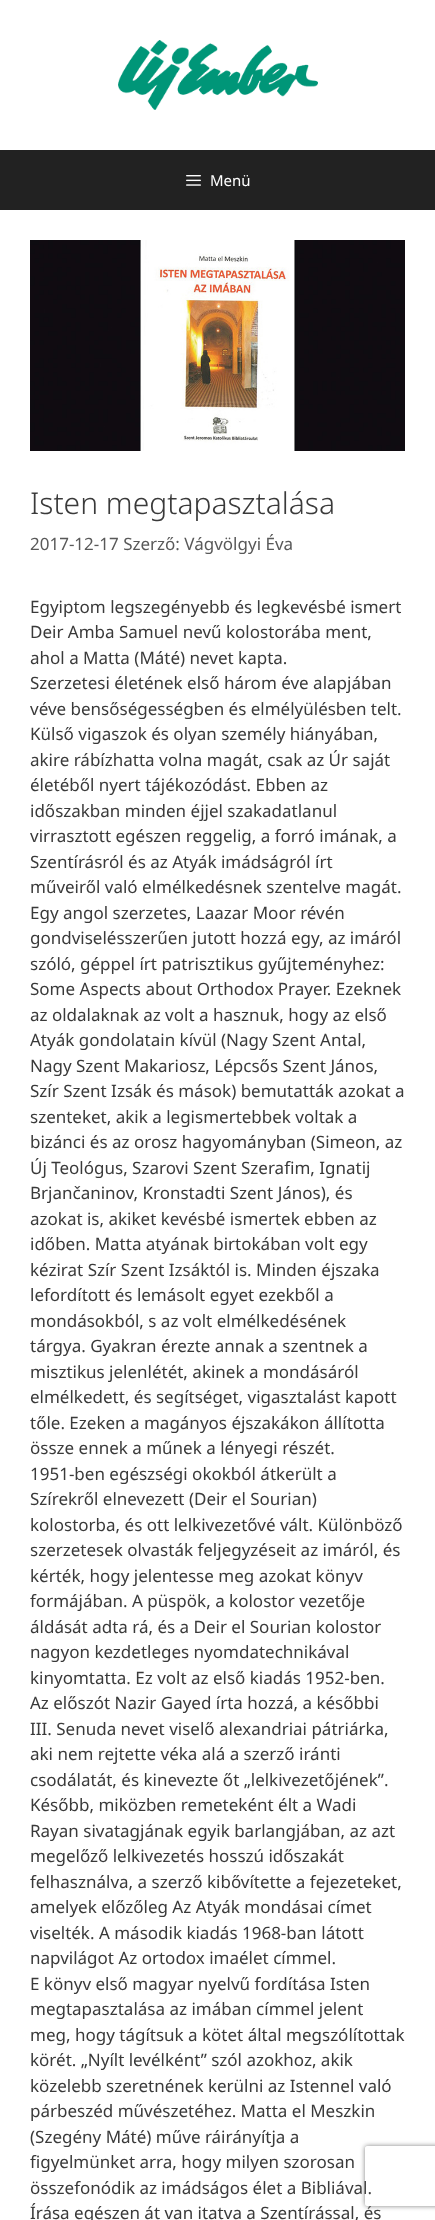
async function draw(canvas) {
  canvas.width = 435
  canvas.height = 2220
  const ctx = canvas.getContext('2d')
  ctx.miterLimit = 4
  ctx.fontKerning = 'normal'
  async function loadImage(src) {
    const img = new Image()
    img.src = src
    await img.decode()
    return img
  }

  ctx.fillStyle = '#222'
  ctx.fillRect(0, 0, 435, 2220)
  ctx.fillStyle = '#fff'
  ctx.fillRect(0, 0, 435, 150)
  ctx.drawImage(await loadImage('image0.png'), 118, 40, 200, 70)
  ctx.drawImage(await loadImage('image1.png'), 186, 175, 15, 11)
  ctx.font = '15px Noto Sans'
  ctx.fillText('Menü', 210, 186)
  ctx.fillRect(0, 210, 435, 2010)
  ctx.drawImage(await loadImage('image2.png'), 30, 240, 375, 211)
  ctx.font = '300 30px Noto Sans'
  ctx.fillStyle = '#3a3a3a'
  ctx.fillText('Isten megtapasztalása', 30, 514)
  ctx.font = '17px Noto Sans'
  ctx.fillStyle = '#595959'
  ctx.fillText('2017-12-17 Szerző: Vágvölgyi Éva', 30, 550)
  ctx.fillStyle = '#3a3a3a'
  ctx.fillText('Egyiptom legszegényebb és legkevésbé ismert', 30, 613)
  ctx.fillText('Deir Amba Samuel nevű kolostorába ment,', 30, 638)
  ctx.fillText('ahol a Matta (Máté) nevet kapta.', 30, 664)
  ctx.fillText('Szerzetesi életének első három éve alapjában', 30, 689)
  ctx.fillText('véve bensőségességben és elmélyülésben telt.', 30, 715)
  ctx.fillText('Külső vigaszok és olyan személy hiányában,', 30, 740)
  ctx.fillText('akire rábízhatta volna magát, csak az Úr saját', 30, 766)
  ctx.fillText('életéből nyert tájékozódást. Ebben az', 30, 791)
  ctx.fillText('időszakban minden éjjel szakadatlanul', 30, 817)
  ctx.fillText('virrasztott egészen reggelig, a forró imának, a', 30, 842)
  ctx.fillText('Szentírásról és az Atyák imádságról írt', 30, 868)
  ctx.fillText('műveiről való elmélkedésnek szentelve magát.', 30, 893)
  ctx.fillText('Egy angol szerzetes, Laazar Moor révén', 30, 919)
  ctx.fillText('gondviselésszerűen jutott hozzá egy, az imáról', 30, 944)
  ctx.fillText('szóló, géppel írt patrisztikus gyűjteményhez:', 30, 970)
  ctx.fillText('Some Aspects about Orthodox Prayer. Ezeknek', 30, 995)
  ctx.fillText('az oldalaknak az volt a hasznuk, hogy az első', 30, 1021)
  ctx.fillText('Atyák gondolatain kívül (Nagy Szent Antal,', 30, 1046)
  ctx.fillText('Nagy Szent Makariosz, Lépcsős Szent János,', 30, 1072)
  ctx.fillText('Szír Szent Izsák és mások) bemutatták azokat a', 30, 1097)
  ctx.fillText('szenteket, akik a legismertebbek voltak a', 30, 1123)
  ctx.fillText('bizánci és az orosz hagyományban (Simeon, az', 30, 1148)
  ctx.fillText('Új Teológus, Szarovi Szent Szerafim, Ignatij', 30, 1174)
  ctx.fillText('Brjančaninov, Kronstadti Szent János), és', 30, 1199)
  ctx.fillText('azokat is, akiket kevésbé ismertek ebben az', 30, 1225)
  ctx.fillText('időben. Matta atyának birtokában volt egy', 30, 1250)
  ctx.fillText('kézirat Szír Szent Izsáktól is. Minden éjszaka', 30, 1276)
  ctx.fillText('lefordított és lemásolt egyet ezekből a', 30, 1301)
  ctx.fillText('mondásokból, s az volt elmélkedésének', 30, 1327)
  ctx.fillText('tárgya. Gyakran érezte annak a szentnek a', 30, 1352)
  ctx.fillText('misztikus jelenlétét, akinek a mondásáról', 30, 1378)
  ctx.fillText('elmélkedett, és segítséget, vigasztalást kapott', 30, 1403)
  ctx.fillText('tőle. Ezeken a magányos éjszakákon állította', 30, 1429)
  ctx.fillText('össze ennek a műnek a lényegi részét.', 30, 1454)
  ctx.fillText('1951-ben egészségi okokból átkerült a', 30, 1480)
  ctx.fillText('Szírekről elnevezett (Deir el Sourian)', 30, 1505)
  ctx.fillText('kolostorba, és ott lelkivezetővé vált. Különböző', 30, 1531)
  ctx.fillText('szerzetesek olvasták feljegyzéseit az imáról, és', 30, 1556)
  ctx.fillText('kérték, hogy jelentesse meg azokat könyv', 30, 1582)
  ctx.fillText('formájában. A püspök, a kolostor vezetője', 30, 1607)
  ctx.fillText('áldását adta rá, és a Deir el Sourian kolostor', 30, 1633)
  ctx.fillText('nagyon kezdetleges nyomdatechnikával', 30, 1658)
  ctx.fillText('kinyomtatta. Ez volt az első kiadás 1952-ben.', 30, 1684)
  ctx.fillText('Az előszót Nazir Gayed írta hozzá, a későbbi', 30, 1709)
  ctx.fillText('III. Senuda nevet viselő alexandriai pátriárka,', 30, 1735)
  ctx.fillText('aki nem rejtette véka alá a szerző iránti', 30, 1760)
  ctx.fillText('csodálatát, és kinevezte őt „lelkivezetőjének”.', 30, 1786)
  ctx.fillText('Később, miközben remeteként élt a Wadi', 30, 1811)
  ctx.fillText('Rayan sivatagjának egyik barlangjában, az azt', 30, 1837)
  ctx.fillText('megelőző lelkivezetés hosszú időszakát', 30, 1862)
  ctx.fillText('felhasználva, a szerző kibővítette a fejezeteket,', 30, 1888)
  ctx.fillText('amelyek előzőleg Az Atyák mondásai címet', 30, 1913)
  ctx.fillText('viselték. A második kiadás 1968-ban látott', 30, 1939)
  ctx.fillText('napvilágot Az ortodox imaélet címmel.', 30, 1964)
  ctx.fillText('E könyv első magyar nyelvű fordítása Isten', 30, 1990)
  ctx.fillText('megtapasztalása az imában címmel jelent', 30, 2015)
  ctx.fillText('meg, hogy tágítsuk a kötet által megszólítottak', 30, 2041)
  ctx.fillText('körét. „Nyílt levélként” szól azokhoz, akik', 30, 2066)
  ctx.fillText('közelebb szeretnének kerülni az Istennel való', 30, 2092)
  ctx.fillText('párbeszéd művészetéhez. Matta el Meszkin', 30, 2117)
  ctx.fillText('(Szegény Máté) műve ráirányítja a', 30, 2143)
  ctx.fillText('figyelmünket arra, hogy milyen szorosan', 30, 2168)
  ctx.fillText('összefonódik az imádságos élet a Bibliával.', 30, 2194)
  ctx.fillText('Írása egészen át van itatva a Szentírással, és', 30, 2219)
  ctx.save()
  ctx.beginPath()
  ctx.moveTo(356, 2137)
  ctx.lineTo(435, 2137)
  ctx.lineTo(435, 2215)
  ctx.lineTo(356, 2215)
  ctx.closePath()
  ctx.moveTo(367, 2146)
  ctx.lineTo(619, 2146)
  ctx.bezierCurveTo(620, 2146, 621, 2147, 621, 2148)
  ctx.lineTo(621, 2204)
  ctx.bezierCurveTo(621, 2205, 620, 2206, 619, 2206)
  ctx.lineTo(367, 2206)
  ctx.bezierCurveTo(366, 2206, 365, 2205, 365, 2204)
  ctx.lineTo(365, 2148)
  ctx.bezierCurveTo(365, 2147, 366, 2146, 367, 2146)
  ctx.closePath()
  ctx.clip('evenodd')
  ctx.fillStyle = '#808080'
  ctx.filter = 'blur(2.5px)'
  ctx.beginPath()
  ctx.roundRect(365, 2146, 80, 60, 2)
  ctx.fill()
  ctx.filter = 'none'
  ctx.restore()
}

draw(document.querySelector('canvas'))
